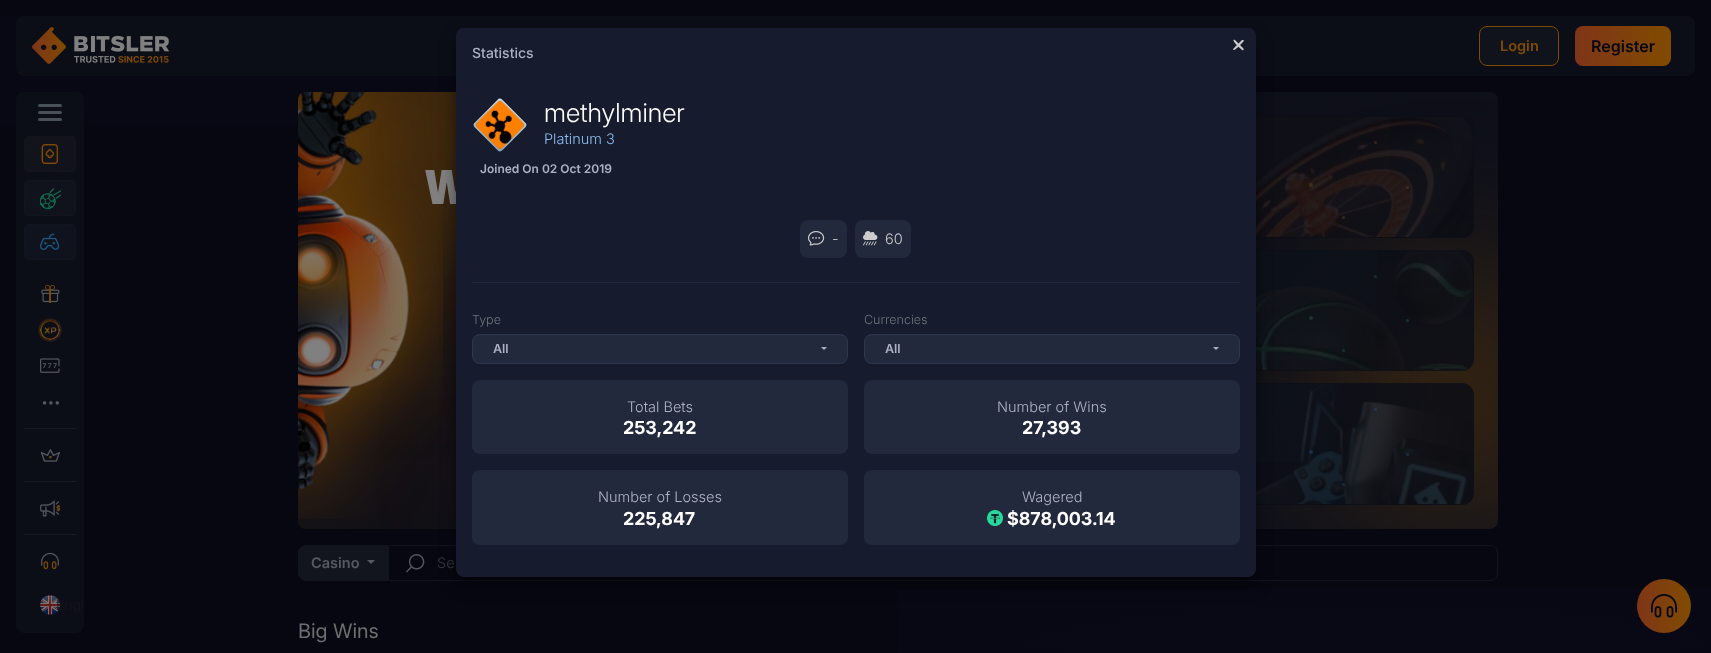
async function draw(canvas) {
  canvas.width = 1711
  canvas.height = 653
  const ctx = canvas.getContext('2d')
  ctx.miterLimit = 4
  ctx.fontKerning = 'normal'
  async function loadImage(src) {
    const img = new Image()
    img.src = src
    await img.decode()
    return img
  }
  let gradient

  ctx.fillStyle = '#070712'
  ctx.fillRect(0, 0, 1711, 653)
  gradient = ctx.createRadialGradient(1369, 4782.68, 0, 1369, 4782.68, 2395)
  gradient.addColorStop(0, '#462e7b08')
  gradient.addColorStop(0.7, '#462e7b00')
  ctx.fillStyle = gradient
  ctx.beginPath()
  ctx.rect(899, 589, 812, 64)
  ctx.save()
  ctx.clip()
  ctx.scale(1, 327 / 2395)
  ctx.fillRect(0, 0, 1711, 4783)
  ctx.restore()
  gradient = ctx.createRadialGradient(342, 0, 0, 342, 0, 2567)
  gradient.addColorStop(0, '#3233790a')
  gradient.addColorStop(0.7, '#32337900')
  ctx.fillStyle = gradient
  ctx.beginPath()
  ctx.rect(0, 16, 456, 110)
  ctx.save()
  ctx.clip()
  ctx.scale(1, 392 / 2567)
  ctx.fillRect(0, 0, 1711, 4277)
  ctx.restore()
  gradient = ctx.createLinearGradient(489, -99, 1307, 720)
  gradient.addColorStop(0, '#291c13e6')
  gradient.addColorStop(0.4, '#0c0e17f2')
  gradient.addColorStop(1, '#10121ce6')
  ctx.fillStyle = gradient
  ctx.beginPath()
  ctx.roundRect(298, 92, 1200, 437, 8)
  ctx.fill()
  ctx.save()
  ctx.beginPath()
  ctx.roundRect(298, 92, 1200, 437, 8)
  ctx.clip()
  ctx.fillStyle = '#804b0066'
  ctx.filter = 'blur(80px)'
  ctx.beginPath()
  ctx.roundRect(248, -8, 300, 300, 150)
  ctx.fill()
  ctx.filter = 'none'
  ctx.restore()
  ctx.fillStyle = '#0c0e17'
  ctx.beginPath()
  ctx.roundRect(16, 92, 68, 541, 8)
  ctx.fill()
  ctx.fillStyle = '#485157'
  ctx.beginPath()
  ctx.roundRect(38, 104, 24, 3, 1.5)
  ctx.fill()
  ctx.beginPath()
  ctx.roundRect(38, 111, 24, 3, 1.5)
  ctx.fill()
  ctx.beginPath()
  ctx.roundRect(38, 118, 24, 3, 1.5)
  ctx.fill()
  ctx.save()
  ctx.beginPath()
  ctx.roundRect(24, 136, 52, 36, 4)
  ctx.clip()
  gradient = ctx.createLinearGradient(29, 133, 71, 175)
  gradient.addColorStop(0, '#14141a')
  gradient.addColorStop(1, '#10121c')
  ctx.fillStyle = gradient
  ctx.fillRect(25, 137, 50, 34)
  ctx.restore()
  ctx.beginPath()
  ctx.roundRect(24.5, 136.5, 51, 35, 3.5)
  ctx.strokeStyle = '#12151e'
  ctx.stroke()
  ctx.drawImage(await loadImage('image0.png'), 41, 144, 18, 20)
  ctx.save()
  ctx.beginPath()
  ctx.roundRect(24, 180, 52, 36, 4)
  ctx.clip()
  gradient = ctx.createLinearGradient(29, 177, 71, 219)
  gradient.addColorStop(0, '#0f131c')
  gradient.addColorStop(1, '#10121c')
  ctx.fillStyle = gradient
  ctx.fillRect(25, 181, 50, 34)
  ctx.restore()
  ctx.beginPath()
  ctx.roundRect(24.5, 180.5, 51, 35, 3.5)
  ctx.stroke()
  ctx.drawImage(await loadImage('image1.png'), 40, 188, 21, 21)
  ctx.save()
  ctx.beginPath()
  ctx.roundRect(24, 224, 52, 36, 4)
  ctx.clip()
  gradient = ctx.createLinearGradient(29, 221, 71, 263)
  gradient.addColorStop(0, '#0e141f')
  gradient.addColorStop(1, '#10121c')
  ctx.fillStyle = gradient
  ctx.fillRect(25, 225, 50, 34)
  ctx.restore()
  ctx.beginPath()
  ctx.roundRect(24.5, 224.5, 51, 35, 3.5)
  ctx.stroke()
  ctx.drawImage(await loadImage('image2.png'), 40, 233, 20, 17)
  ctx.drawImage(await loadImage('image3.png'), 41, 284, 19, 19)
  ctx.save()
  ctx.beginPath()
  ctx.moveTo(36, 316)
  ctx.lineTo(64, 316)
  ctx.lineTo(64, 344)
  ctx.lineTo(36, 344)
  ctx.closePath()
  ctx.moveTo(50, 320)
  ctx.bezierCurveTo(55.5, 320, 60, 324.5, 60, 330)
  ctx.bezierCurveTo(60, 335.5, 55.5, 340, 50, 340)
  ctx.bezierCurveTo(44.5, 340, 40, 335.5, 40, 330)
  ctx.bezierCurveTo(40, 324.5, 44.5, 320, 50, 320)
  ctx.closePath()
  ctx.clip('evenodd')
  ctx.fillStyle = '#805c2766'
  ctx.filter = 'blur(1px)'
  ctx.beginPath()
  ctx.roundRect(40, 320, 20, 20, 10)
  ctx.fill()
  ctx.filter = 'none'
  ctx.restore()
  ctx.save()
  ctx.beginPath()
  ctx.moveTo(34, 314)
  ctx.lineTo(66, 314)
  ctx.lineTo(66, 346)
  ctx.lineTo(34, 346)
  ctx.closePath()
  ctx.moveTo(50, 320)
  ctx.bezierCurveTo(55.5, 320, 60, 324.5, 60, 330)
  ctx.bezierCurveTo(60, 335.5, 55.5, 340, 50, 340)
  ctx.bezierCurveTo(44.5, 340, 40, 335.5, 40, 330)
  ctx.bezierCurveTo(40, 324.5, 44.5, 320, 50, 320)
  ctx.closePath()
  ctx.clip('evenodd')
  ctx.fillStyle = '#80460de6'
  ctx.filter = 'blur(1.5px)'
  ctx.beginPath()
  ctx.roundRect(40, 320, 20, 20, 10)
  ctx.fill()
  ctx.filter = 'none'
  ctx.restore()
  ctx.drawImage(await loadImage('image4.png'), 40, 320, 20, 20)
  ctx.drawImage(await loadImage('image5.png'), 40, 358, 20, 15)
  ctx.drawImage(await loadImage('image6.png'), 42, 401, 17, 4)
  ctx.fillStyle = '#181b24'
  ctx.fillRect(24, 428, 52, 1)
  ctx.drawImage(await loadImage('image7.png'), 40, 449, 20, 13)
  ctx.fillRect(24, 481, 52, 1)
  ctx.drawImage(await loadImage('image8.png'), 40, 500, 21, 17)
  ctx.fillRect(24, 534, 52, 1)
  ctx.drawImage(await loadImage('image9.png'), 41, 552, 18, 18)
  ctx.drawImage(await loadImage('image10.png'), 40, 595, 20, 20)
  ctx.font = '300 14px Inter'
  ctx.fillStyle = '#16151f'
  ctx.fillText('Engl', 56, 610)
  ctx.save()
  ctx.beginPath()
  ctx.roundRect(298, 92, 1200, 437, 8)
  ctx.clip()
  ctx.fillStyle = '#804b0066'
  ctx.filter = 'blur(80px)'
  ctx.beginPath()
  ctx.roundRect(1328, 267, 250, 250, 125)
  ctx.fill()
  ctx.filter = 'none'
  ctx.fillStyle = '#7f351866'
  ctx.filter = 'blur(80px)'
  ctx.beginPath()
  ctx.roundRect(538, 379, 200, 200, 100)
  ctx.fill()
  ctx.filter = 'none'
  ctx.restore()
  ctx.drawImage(await loadImage('image11.png'), 298, 92, 145, 427)
  gradient = ctx.createRadialGradient(329, 775.27, 0, 329, 775.27, 198)
  gradient.addColorStop(0, '#804b0080')
  gradient.addColorStop(0.7, '#804b0000')
  ctx.fillStyle = gradient
  ctx.beginPath()
  ctx.rect(298, 234, 81, 91)
  ctx.save()
  ctx.clip()
  ctx.scale(1, 71 / 198)
  ctx.fillRect(0, 0, 1711, 1822)
  ctx.restore()
  ctx.letterSpacing = '1px'
  ctx.font = 'bold 44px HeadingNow'
  ctx.fillStyle = '#808080'
  ctx.fillText('W', 425, 204)
  ctx.fillStyle = '#0c0e17d9'
  ctx.beginPath()
  ctx.roundRect(834, 116, 640, 122, 12)
  ctx.fill()
  ctx.drawImage(await loadImage('image12.png'), 1256, 117, 217, 120)
  gradient = ctx.createLinearGradient(835, 177, 1473, 177)
  gradient.addColorStop(0, '#0c0e173d')
  gradient.addColorStop(0.5, '#0c0e172b')
  gradient.addColorStop(1, '#0c0e1712')
  ctx.fillStyle = gradient
  ctx.beginPath()
  ctx.roundRect(835, 117, 638, 120, 11)
  ctx.fill()
  gradient = ctx.createLinearGradient(965, -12, 1344, 367)
  gradient.addColorStop(0, '#804b0012')
  gradient.addColorStop(0.5, '#7f35180a')
  gradient.addColorStop(1, '#7f351800')
  ctx.fillStyle = gradient
  ctx.fillRect(1256, 117, 133, 120)
  ctx.fillStyle = '#3c270d'
  ctx.filter = 'blur(0.5px)'
  ctx.beginPath()
  ctx.roundRect(1374, 141, 3, 3, 1.5)
  ctx.fill()
  ctx.filter = 'none'
  ctx.fillStyle = '#804b0066'
  ctx.filter = 'blur(0.5px)'
  ctx.beginPath()
  ctx.roundRect(1309, 183, 4, 4, 2)
  ctx.fill()
  ctx.filter = 'none'
  ctx.filter = 'blur(0.5px)'
  ctx.beginPath()
  ctx.roundRect(1406, 186, 3, 3, 1.5)
  ctx.fill()
  ctx.filter = 'none'
  ctx.filter = 'blur(0.5px)'
  ctx.beginPath()
  ctx.roundRect(1342, 216, 3, 3, 1.5)
  ctx.fill()
  ctx.filter = 'none'
  ctx.fillStyle = '#0c0e17d9'
  ctx.beginPath()
  ctx.roundRect(834, 250, 640, 121, 12)
  ctx.fill()
  ctx.drawImage(await loadImage('image13.png'), 1256, 251, 217, 119)
  gradient = ctx.createLinearGradient(835, 311, 1473, 311)
  gradient.addColorStop(0, '#0c0e173d')
  gradient.addColorStop(0.5, '#0c0e172b')
  gradient.addColorStop(1, '#0c0e1712')
  ctx.fillStyle = gradient
  ctx.beginPath()
  ctx.roundRect(835, 251, 638, 119, 11)
  ctx.fill()
  gradient = ctx.createLinearGradient(965, 121, 1343, 500)
  gradient.addColorStop(0, '#146e4d12')
  gradient.addColorStop(0.5, '#146e4d0a')
  gradient.addColorStop(1, '#146e4d00')
  ctx.fillStyle = gradient
  ctx.fillRect(1256, 251, 121, 109)
  ctx.fillStyle = '#10362d'
  ctx.filter = 'blur(0.5px)'
  ctx.beginPath()
  ctx.roundRect(1374, 275, 3, 3, 1.5)
  ctx.fill()
  ctx.filter = 'none'
  ctx.fillStyle = '#12382e'
  ctx.filter = 'blur(0.5px)'
  ctx.beginPath()
  ctx.roundRect(1309, 316, 4, 4, 2)
  ctx.fill()
  ctx.filter = 'none'
  ctx.fillStyle = '#11362d'
  ctx.filter = 'blur(0.5px)'
  ctx.beginPath()
  ctx.roundRect(1406, 319, 3, 3, 1.5)
  ctx.fill()
  ctx.filter = 'none'
  ctx.fillStyle = '#146e4d66'
  ctx.filter = 'blur(0.5px)'
  ctx.beginPath()
  ctx.roundRect(1342, 349, 3, 3, 1.5)
  ctx.fill()
  ctx.filter = 'none'
  ctx.fillStyle = '#0c0e17d9'
  ctx.beginPath()
  ctx.roundRect(834, 383, 640, 122, 12)
  ctx.fill()
  ctx.drawImage(await loadImage('image14.png'), 1256, 384, 217, 120)
  gradient = ctx.createLinearGradient(835, 444, 1473, 444)
  gradient.addColorStop(0, '#0c0e173d')
  gradient.addColorStop(0.5, '#0c0e172b')
  gradient.addColorStop(1, '#0c0e1712')
  ctx.fillStyle = gradient
  ctx.beginPath()
  ctx.roundRect(835, 384, 638, 120, 11)
  ctx.fill()
  gradient = ctx.createLinearGradient(965, 255, 1344, 634)
  gradient.addColorStop(0, '#1d578012')
  gradient.addColorStop(0.5, '#1d57800a')
  gradient.addColorStop(1, '#1d578000')
  ctx.fillStyle = gradient
  ctx.fillRect(1256, 384, 78, 78)
  ctx.fillStyle = '#213a4e'
  ctx.filter = 'blur(0.5px)'
  ctx.beginPath()
  ctx.roundRect(1374, 408, 3, 3, 1.5)
  ctx.fill()
  ctx.filter = 'none'
  ctx.fillStyle = '#1d578066'
  ctx.filter = 'blur(0.5px)'
  ctx.beginPath()
  ctx.roundRect(1309, 450, 4, 4, 2)
  ctx.fill()
  ctx.filter = 'none'
  ctx.filter = 'blur(0.5px)'
  ctx.beginPath()
  ctx.roundRect(1406, 453, 3, 3, 1.5)
  ctx.fill()
  ctx.filter = 'none'
  ctx.filter = 'blur(0.5px)'
  ctx.beginPath()
  ctx.roundRect(1342, 483, 3, 3, 1.5)
  ctx.fill()
  ctx.filter = 'none'
  ctx.fillStyle = '#12151e'
  ctx.beginPath()
  ctx.roundRect(298.5, 545.5, 89, 35, [7.5, 0, 0, 7.5])
  ctx.fill()
  ctx.stroke()
  ctx.letterSpacing = '0px'
  ctx.font = '600 14.5px Inter'
  ctx.fillStyle = '#565960'
  ctx.fillText('Casino', 311, 568)
  ctx.beginPath()
  ctx.moveTo(367, 560)
  ctx.lineTo(375, 560)
  ctx.lineTo(371, 564)
  ctx.closePath()
  ctx.fill()
  ctx.beginPath()
  ctx.roundRect(388.5, 545.5, 1109, 35, [0, 7.5, 7.5, 0])
  ctx.stroke()
  ctx.drawImage(await loadImage('image15.png'), 406, 554, 19, 19)
  ctx.font = '300 14.5px Inter'
  ctx.fillStyle = '#363b3f'
  ctx.fillText('Se', 437, 568)
  ctx.font = '20px Inter'
  ctx.fillStyle = '#6e6e6f'
  ctx.fillText('Big Wins', 298, 638)
  ctx.fillStyle = '#0c0e17'
  ctx.beginPath()
  ctx.roundRect(16, 16, 1679, 60, 8)
  ctx.fill()
  ctx.fillStyle = '#00000080'
  ctx.filter = 'blur(8px)'
  ctx.beginPath()
  ctx.roundRect(456, 36, 800, 549, 8)
  ctx.fill()
  ctx.filter = 'none'
  ctx.fillStyle = '#171b2e'
  ctx.beginPath()
  ctx.roundRect(456, 28, 800, 549, 8)
  ctx.fill()
  ctx.fillStyle = '#ccc'
  ctx.beginPath()
  ctx.moveTo(1235, 40)
  ctx.lineTo(1243.5, 48.5)
  ctx.lineTo(1243.5, 50)
  ctx.bezierCurveTo(1242.5, 51, 1241, 49, 1240.5, 48.5)
  ctx.bezierCurveTo(1239.5, 47.5, 1232.5, 41.5, 1233.5, 40)
  ctx.bezierCurveTo(1234, 39.5, 1234.5, 39.5, 1235, 40)
  ctx.closePath()
  ctx.fill()
  ctx.beginPath()
  ctx.moveTo(1233.5, 48.5)
  ctx.lineTo(1242, 40)
  ctx.lineTo(1243.5, 40)
  ctx.bezierCurveTo(1244.5, 41, 1242.5, 42.5, 1242, 43)
  ctx.bezierCurveTo(1241, 44, 1235, 51, 1233.5, 50)
  ctx.bezierCurveTo(1233, 49.5, 1233, 49, 1233.5, 48.5)
  ctx.closePath()
  ctx.fill()
  ctx.font = '500 14px Inter'
  ctx.fillStyle = '#acb1c0'
  ctx.fillText('Statistics', 472, 58)
  ctx.beginPath()
  ctx.moveTo(475.5, 123.5)
  ctx.lineTo(498.5, 100.5)
  ctx.bezierCurveTo(499, 99.5, 500.5, 99.5, 501.5, 100.5)
  ctx.lineTo(524.5, 123.5)
  ctx.bezierCurveTo(525.5, 124, 525.5, 125.5, 524.5, 126.5)
  ctx.lineTo(501.5, 149.5)
  ctx.bezierCurveTo(500.5, 150.5, 499, 150.5, 498.5, 149.5)
  ctx.lineTo(475.5, 126.5)
  ctx.bezierCurveTo(474.5, 125.5, 474.5, 124, 475.5, 123.5)
  ctx.closePath()
  gradient = ctx.createLinearGradient(505, 103, 496, 150)
  gradient.addColorStop(0, '#c5d8e8')
  gradient.addColorStop(1, '#89a6be')
  ctx.strokeStyle = gradient
  ctx.lineWidth = 2.4
  ctx.stroke()
  ctx.drawImage(await loadImage('image16.png'), 475, 100, 50, 50)
  ctx.font = '300 26px "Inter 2"'
  ctx.fillStyle = '#fff'
  ctx.fillText('methylminer', 544, 122)
  ctx.font = '300 14.5px Inter'
  ctx.fillStyle = '#8abff4'
  ctx.fillText('Platinum 3', 544, 144)
  ctx.font = '600 12px Inter'
  ctx.fillStyle = '#acb1c0'
  ctx.fillText('Joined On 02 Oct 2019', 480, 173)
  ctx.fillStyle = '#23293c'
  ctx.beginPath()
  ctx.roundRect(800, 220, 47, 38, 8)
  ctx.fill()
  ctx.drawImage(await loadImage('image17.png'), 808, 231, 17, 15)
  ctx.font = '300 14.5px Inter'
  ctx.fillStyle = '#ccc'
  ctx.fillText('-', 832, 244)
  ctx.fillStyle = '#23293c'
  ctx.beginPath()
  ctx.roundRect(855, 220, 56, 38, 8)
  ctx.fill()
  ctx.drawImage(await loadImage('image18.png'), 863, 231, 15, 15)
  ctx.fillStyle = '#ccc'
  ctx.fillText('60', 885, 244)
  ctx.fillStyle = '#23293c'
  ctx.fillRect(472, 282, 768, 1)
  ctx.font = '300 12.5px Inter'
  ctx.fillStyle = '#6c757d'
  ctx.fillText('Type', 472, 324)
  ctx.fillStyle = '#23293c'
  ctx.beginPath()
  ctx.roundRect(472.5, 334.5, 375, 29, 7.5)
  ctx.fill()
  ctx.strokeStyle = '#2f364f'
  ctx.lineWidth = 1
  ctx.stroke()
  ctx.font = '600 12.5px Inter'
  ctx.fillStyle = '#acb1c0'
  ctx.fillText('All', 493, 353)
  ctx.beginPath()
  ctx.moveTo(821, 347)
  ctx.lineTo(827, 347)
  ctx.lineTo(824, 350)
  ctx.closePath()
  ctx.fill()
  ctx.font = '300 12.5px Inter'
  ctx.fillStyle = '#6c757d'
  ctx.fillText('Currencies', 864, 324)
  ctx.fillStyle = '#23293c'
  ctx.beginPath()
  ctx.roundRect(864.5, 334.5, 375, 29, 7.5)
  ctx.fill()
  ctx.stroke()
  ctx.font = '600 12.5px Inter'
  ctx.fillStyle = '#acb1c0'
  ctx.fillText('All', 885, 353)
  ctx.beginPath()
  ctx.moveTo(1213, 347)
  ctx.lineTo(1219, 347)
  ctx.lineTo(1216, 350)
  ctx.closePath()
  ctx.fill()
  ctx.fillStyle = '#23293c'
  ctx.beginPath()
  ctx.roundRect(472, 380, 376, 74, 8)
  ctx.fill()
  ctx.font = '300 14.5px Inter'
  ctx.fillStyle = '#aeb4c6'
  ctx.fillText('Total Bets', 627, 412)
  ctx.font = 'bold 18px Inter'
  ctx.fillStyle = '#fff'
  ctx.fillText('253,242', 623, 434)
  ctx.fillStyle = '#23293c'
  ctx.beginPath()
  ctx.roundRect(864, 380, 376, 74, 8)
  ctx.fill()
  ctx.font = '300 14.5px Inter'
  ctx.fillStyle = '#aeb4c6'
  ctx.fillText('Number of Wins', 997, 412)
  ctx.font = 'bold 18px Inter'
  ctx.fillStyle = '#fff'
  ctx.fillText('27,393', 1022, 434)
  ctx.fillStyle = '#23293c'
  ctx.beginPath()
  ctx.roundRect(472, 470, 376, 75, 8)
  ctx.fill()
  ctx.font = '300 14.5px Inter'
  ctx.fillStyle = '#aeb4c6'
  ctx.fillText('Number of Losses', 598, 502)
  ctx.font = 'bold 18px Inter'
  ctx.fillStyle = '#fff'
  ctx.fillText('225,847', 623, 525)
  ctx.fillStyle = '#23293c'
  ctx.beginPath()
  ctx.roundRect(864, 470, 376, 75, 8)
  ctx.fill()
  ctx.font = '300 14.5px Inter'
  ctx.fillStyle = '#aeb4c6'
  ctx.fillText('Wagered', 1022, 502)
  ctx.drawImage(await loadImage('image19.png'), 987, 510, 16, 16)
  ctx.font = 'bold 18px Inter'
  ctx.fillStyle = '#fff'
  ctx.fillText('$878,003.14', 1007, 525)
  ctx.drawImage(await loadImage('image20.png'), 32, 27, 137, 37)
  ctx.fillStyle = '#10121c'
  ctx.beginPath()
  ctx.roundRect(1479.5, 26.5, 79, 39, 7.5)
  ctx.fill()
  ctx.strokeStyle = '#804b00'
  ctx.stroke()
  ctx.font = '600 14.5px Inter'
  ctx.fillStyle = '#804b00'
  ctx.fillText('Login', 1500, 51)
  gradient = ctx.createLinearGradient(1575, 46, 1671, 46)
  gradient.addColorStop(0, '#7f3518')
  gradient.addColorStop(1, '#804b00')
  ctx.fillStyle = gradient
  ctx.beginPath()
  ctx.roundRect(1575, 26, 96, 40, 8)
  ctx.fill()
  ctx.font = '600 16px Inter'
  ctx.fillStyle = '#070712'
  ctx.fillText('Register', 1591, 52)
  gradient = ctx.createLinearGradient(1637, 606, 1691, 606)
  gradient.addColorStop(0, '#7f3518')
  gradient.addColorStop(1, '#804b00')
  ctx.fillStyle = gradient
  ctx.beginPath()
  ctx.arc(1664, 606, 27, 0, 2 * Math.PI)
  ctx.fill()
  ctx.drawImage(await loadImage('image21.png'), 1651, 594, 26, 24)
}

draw(document.querySelector('canvas'))
